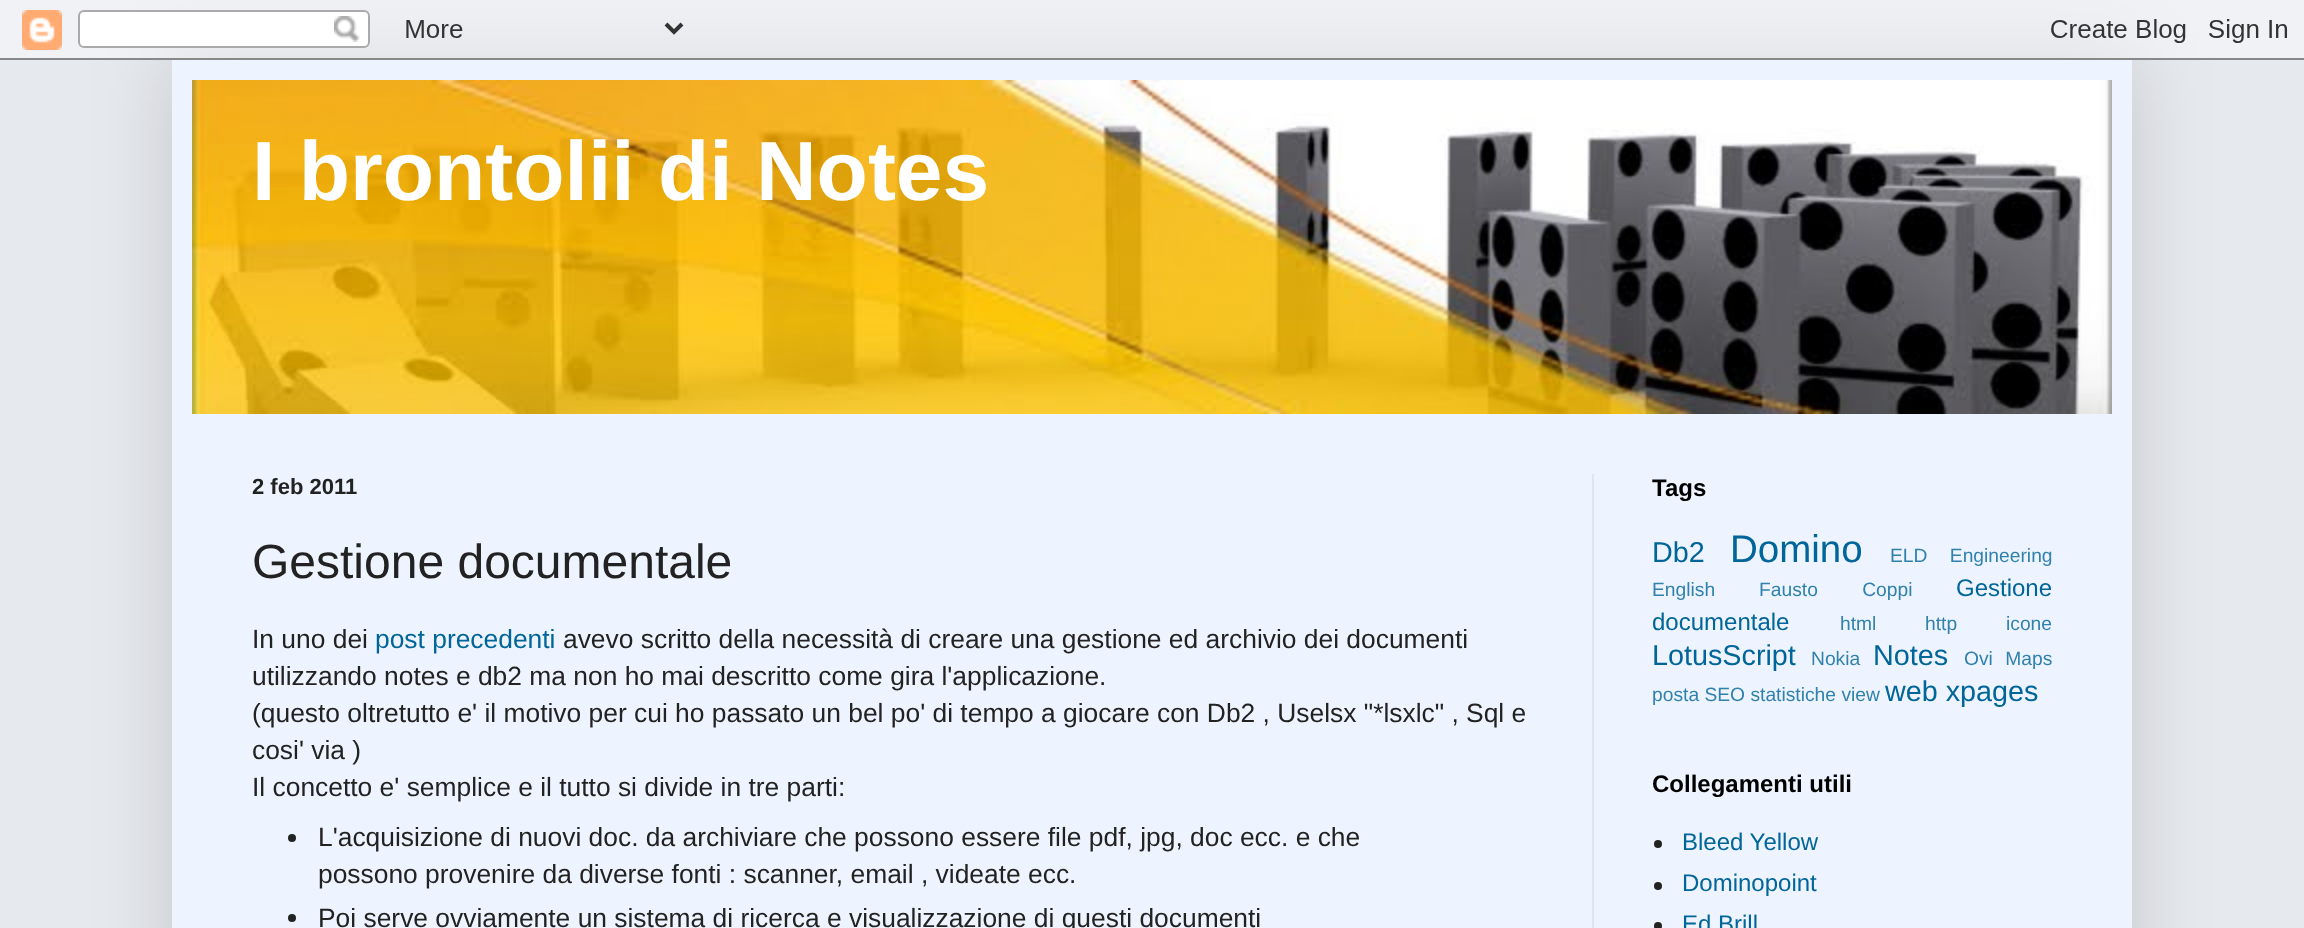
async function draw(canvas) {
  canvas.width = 2304
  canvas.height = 928
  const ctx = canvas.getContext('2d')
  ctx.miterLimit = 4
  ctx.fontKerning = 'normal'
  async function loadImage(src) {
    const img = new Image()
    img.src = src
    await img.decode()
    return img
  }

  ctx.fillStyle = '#e6e9ee'
  ctx.fillRect(0, 0, 2304, 928)
  ctx.fillStyle = '#00000026'
  ctx.filter = 'blur(40px)'
  ctx.beginPath()
  ctx.rect(172, 60, 1960, 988)
  ctx.fill()
  ctx.filter = 'none'
  ctx.drawImage(await loadImage('image0.png'), 0, 0, 2304, 60)
  ctx.fillStyle = '#eef4ff'
  ctx.fillRect(172, 60, 1960, 868)
  ctx.drawImage(await loadImage('image1.png'), 192, 80, 1920, 334)
  ctx.font = 'bold 84px Liberation Sans'
  ctx.fillStyle = '#fff'
  ctx.fillText('I brontolii di Notes', 252, 200)
  ctx.fillStyle = '#dde6ee'
  ctx.fillRect(1592, 474, 2, 454)
  ctx.font = 'bold 22px Liberation Sans'
  ctx.fillStyle = '#222'
  ctx.fillText('2 feb 2011', 252, 494)
  ctx.font = '48px Liberation Sans'
  ctx.fillText('Gestione documentale', 252, 578)
  ctx.font = '26.4px Liberation Sans'
  ctx.fillText('In uno dei', 252, 648)
  ctx.fillStyle = '#006599'
  ctx.fillText('post precedenti', 375, 648)
  ctx.fillStyle = '#222'
  ctx.fillText('avevo scritto della necessità di creare una gestione ed archivio dei documenti', 563, 648)
  ctx.fillText('utilizzando notes e db2 ma non ho mai descritto come gira l\'applicazione.', 252, 685)
  ctx.fillText('(questo oltretutto e\' il motivo per cui ho passato un bel po\' di tempo a giocare con Db2 , Uselsx "*lsxlc" , Sql e', 252, 722)
  ctx.fillText('cosi\' via )', 252, 759)
  ctx.fillText('Il concetto e\' semplice e il tutto si divide in tre parti:', 252, 796)
  ctx.beginPath()
  ctx.arc(292, 838, 4, 0, 2 * Math.PI)
  ctx.fill()
  ctx.fillText('L\'acquisizione di nuovi doc. da archiviare che possono essere file pdf, jpg, doc ecc. e che', 318, 846)
  ctx.fillText('possono provenire da diverse fonti : scanner, email , videate ecc.', 318, 883)
  ctx.beginPath()
  ctx.arc(292, 918, 4, 0, 2 * Math.PI)
  ctx.fill()
  ctx.fillText('Poi serve ovviamente un sistema di ricerca e visualizzazione di questi documenti', 318, 927)
  ctx.font = 'bold 24px Liberation Sans'
  ctx.fillStyle = '#000'
  ctx.fillText('Tags', 1652, 496)
  ctx.font = '28.75px Liberation Sans'
  ctx.fillStyle = '#006599'
  ctx.fillText('Db2', 1652, 562)
  ctx.font = '38.5px Liberation Sans'
  ctx.fillText('Domino', 1730, 562)
  ctx.wordSpacing = '17px'
  ctx.font = '19.25px Liberation Sans'
  ctx.fillStyle = '#3082ad'
  ctx.fillText('ELD Engineering', 1890, 562)
  ctx.wordSpacing = '0px'
  ctx.fillText('English', 1652, 596)
  ctx.wordSpacing = '39px'
  ctx.fillText('Fausto Coppi', 1759, 596)
  ctx.wordSpacing = '0px'
  ctx.font = '24px Liberation Sans'
  ctx.fillStyle = '#006599'
  ctx.fillText('Gestione', 1956, 596)
  ctx.fillText('documentale', 1652, 630)
  ctx.font = '19.25px Liberation Sans'
  ctx.fillStyle = '#3082ad'
  ctx.fillText('html', 1840, 630)
  ctx.fillText('http', 1925, 630)
  ctx.fillText('icone', 2006, 630)
  ctx.font = '28.75px Liberation Sans'
  ctx.fillStyle = '#006599'
  ctx.fillText('LotusScript', 1652, 665)
  ctx.font = '19.25px Liberation Sans'
  ctx.fillStyle = '#3082ad'
  ctx.fillText('Nokia', 1811, 665)
  ctx.font = '28.75px Liberation Sans'
  ctx.fillStyle = '#006599'
  ctx.fillText('Notes', 1873, 665)
  ctx.wordSpacing = '7px'
  ctx.font = '19.25px Liberation Sans'
  ctx.fillStyle = '#3082ad'
  ctx.fillText('Ovi Maps', 1964, 665)
  ctx.wordSpacing = '0px'
  ctx.fillText('posta SEO statistiche view', 1652, 701)
  ctx.font = '28.75px Liberation Sans'
  ctx.fillStyle = '#006599'
  ctx.fillText('web xpages', 1885, 701)
  ctx.font = 'bold 24px Liberation Sans'
  ctx.fillStyle = '#000'
  ctx.fillText('Collegamenti utili', 1652, 792)
  ctx.fillStyle = '#222'
  ctx.beginPath()
  ctx.arc(1658, 844, 4, 0, 2 * Math.PI)
  ctx.fill()
  ctx.font = '24px Liberation Sans'
  ctx.fillStyle = '#006599'
  ctx.fillText('Bleed Yellow', 1682, 850)
  ctx.fillStyle = '#222'
  ctx.beginPath()
  ctx.arc(1658, 886, 4, 0, 2 * Math.PI)
  ctx.fill()
  ctx.fillStyle = '#006599'
  ctx.fillText('Dominopoint', 1682, 891)
  ctx.fillStyle = '#222'
  ctx.beginPath()
  ctx.arc(1658, 926, 4, 0, 2 * Math.PI)
  ctx.fill()
  ctx.fillStyle = '#006599'
  ctx.fillText('Ed Brill', 1682, 932)
}

draw(document.querySelector('canvas'))
